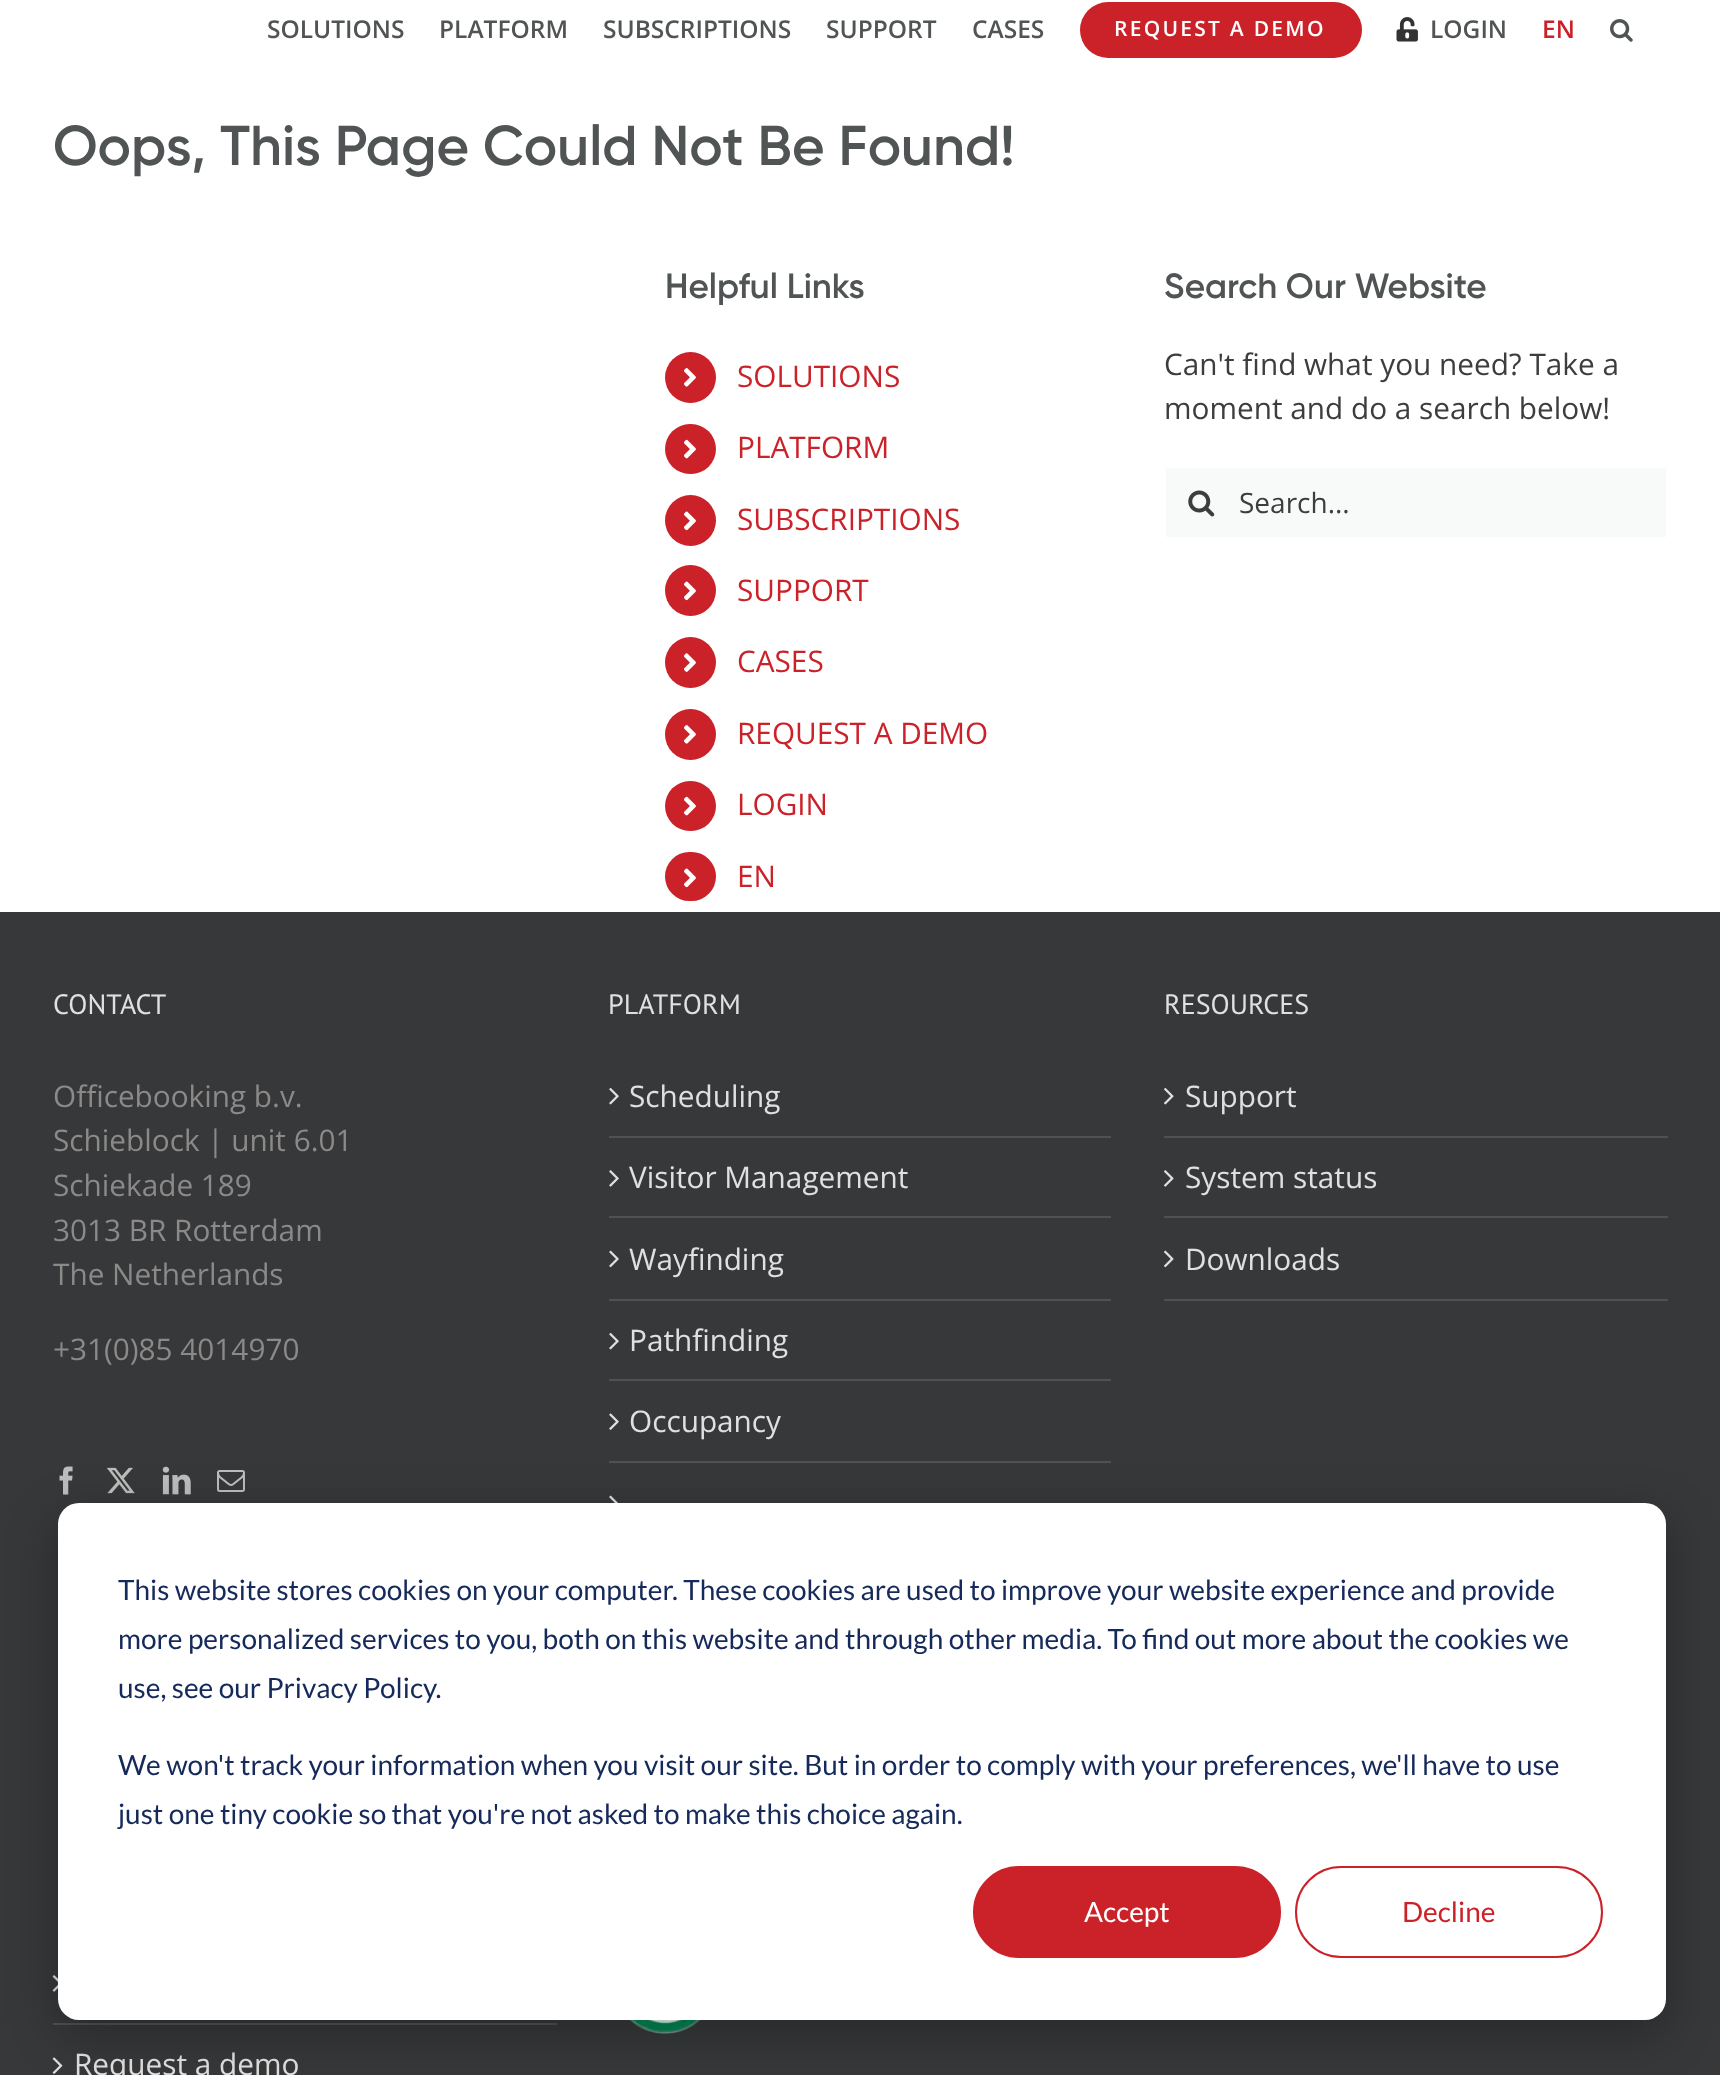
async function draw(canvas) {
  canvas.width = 1720
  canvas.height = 2075
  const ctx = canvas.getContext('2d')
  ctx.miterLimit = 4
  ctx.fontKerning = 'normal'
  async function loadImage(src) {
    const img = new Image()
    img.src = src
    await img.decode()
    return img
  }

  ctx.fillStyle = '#fff'
  ctx.fillRect(0, 0, 1720, 2075)
  ctx.font = '600 24.5px Open Sans'
  ctx.fillStyle = '#515455'
  ctx.fillText('SOLUTIONS', 267, 38)
  ctx.fillText('PLATFORM', 439, 38)
  ctx.fillText('SUBSCRIPTIONS', 603, 38)
  ctx.fillText('SUPPORT', 826, 38)
  ctx.fillText('CASES', 972, 38)
  ctx.fillStyle = '#cb2128'
  ctx.beginPath()
  ctx.roundRect(1080, 2, 282, 56, 28)
  ctx.fill()
  ctx.letterSpacing = '2.25px'
  ctx.font = '600 21px Open Sans'
  ctx.fillStyle = '#fff'
  ctx.fillText('REQUEST A DEMO', 1114, 36)
  ctx.drawImage(await loadImage('image0.png'), 1396, 17, 22, 25)
  ctx.letterSpacing = '0px'
  ctx.font = '600 24.5px Open Sans'
  ctx.fillStyle = '#515455'
  ctx.fillText('LOGIN', 1430, 38)
  ctx.fillStyle = '#cb2128'
  ctx.fillText('EN', 1542, 38)
  ctx.drawImage(await loadImage('image1.png'), 1610, 19, 23, 23)
  ctx.font = '600 56px "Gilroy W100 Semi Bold"'
  ctx.fillStyle = '#515455'
  ctx.fillText('Oops, This Page Could Not Be Found!', 53, 165)
  ctx.font = '600 35px "Gilroy W100 Semi Bold"'
  ctx.fillText('Helpful Links', 665, 298)
  ctx.fillStyle = '#cb2128'
  ctx.beginPath()
  ctx.arc(690.5, 377.5, 25.5, 0, 2 * Math.PI)
  ctx.fill()
  ctx.drawImage(await loadImage('image2.png'), 684, 368, 12, 19)
  ctx.font = '29.75px Open Sans'
  ctx.fillText('SOLUTIONS', 737, 387)
  ctx.beginPath()
  ctx.roundRect(665, 424, 51, 50, 25)
  ctx.fill()
  ctx.drawImage(await loadImage('image3.png'), 684, 439, 12, 20)
  ctx.fillText('PLATFORM', 737, 458)
  ctx.beginPath()
  ctx.arc(690.5, 520.5, 25.5, 0, 2 * Math.PI)
  ctx.fill()
  ctx.drawImage(await loadImage('image4.png'), 684, 511, 12, 20)
  ctx.fillText('SUBSCRIPTIONS', 737, 530)
  ctx.beginPath()
  ctx.arc(690.5, 590.5, 25.5, 0, 2 * Math.PI)
  ctx.fill()
  ctx.drawImage(await loadImage('image4.png'), 684, 581, 12, 20)
  ctx.fillText('SUPPORT', 737, 601)
  ctx.beginPath()
  ctx.arc(690.5, 662.5, 25.5, 0, 2 * Math.PI)
  ctx.fill()
  ctx.drawImage(await loadImage('image5.png'), 684, 653, 12, 19)
  ctx.fillText('CASES', 737, 672)
  ctx.beginPath()
  ctx.arc(690.5, 734.5, 25.5, 0, 2 * Math.PI)
  ctx.fill()
  ctx.drawImage(await loadImage('image2.png'), 684, 725, 12, 19)
  ctx.fillText('REQUEST A DEMO', 737, 744)
  ctx.beginPath()
  ctx.roundRect(665, 781, 51, 50, 25)
  ctx.fill()
  ctx.drawImage(await loadImage('image3.png'), 684, 796, 12, 20)
  ctx.fillText('LOGIN', 737, 815)
  ctx.beginPath()
  ctx.roundRect(665, 852, 51, 49, 24.5)
  ctx.fill()
  ctx.drawImage(await loadImage('image4.png'), 684, 868, 12, 20)
  ctx.fillText('EN', 737, 887)
  ctx.font = '600 35px "Gilroy W100 Semi Bold"'
  ctx.fillStyle = '#515455'
  ctx.fillText('Search Our Website', 1164, 298)
  ctx.font = '29.75px Open Sans'
  ctx.fillStyle = '#3d3d3d'
  ctx.fillText('Can\'t find what you need? Take a', 1164, 375)
  ctx.fillText('moment and do a search below!', 1164, 419)
  ctx.fillStyle = '#f8f9f9'
  ctx.fillRect(1166, 468, 500, 69)
  ctx.drawImage(await loadImage('image6.png'), 1188, 490, 27, 27)
  ctx.font = '28px Open Sans'
  ctx.fillStyle = '#3d3d3d'
  ctx.fillText('Search...', 1239, 513)
  ctx.fillStyle = '#363839'
  ctx.fillRect(0, 912, 1720, 1163)
  ctx.font = '28px PT Sans'
  ctx.fillStyle = '#e1e0e0'
  ctx.fillText('CONTACT', 53, 1014)
  ctx.font = '29.75px Open Sans'
  ctx.fillStyle = '#8c8989'
  ctx.fillText('Officebooking b.v.', 53, 1107)
  ctx.fillText('Schieblock | unit 6.01', 53, 1151)
  ctx.fillText('Schiekade 189', 53, 1196)
  ctx.fillText('3013 BR Rotterdam', 53, 1241)
  ctx.fillText('The Netherlands', 53, 1285)
  ctx.fillText('+31(0)85 4014970', 53, 1360)
  ctx.drawImage(await loadImage('image7.png'), 59, 1466, 14, 29)
  ctx.drawImage(await loadImage('image8.png'), 107, 1467, 28, 27)
  ctx.drawImage(await loadImage('image9.png'), 162, 1466, 29, 29)
  ctx.drawImage(await loadImage('image10.png'), 217, 1470, 28, 22)
  ctx.font = '28px PT Sans'
  ctx.fillStyle = '#e1e0e0'
  ctx.fillText('PLATFORM', 608, 1014)
  ctx.fillStyle = '#505152'
  ctx.fillRect(609, 1136, 502, 2)
  ctx.drawImage(await loadImage('image11.png'), 609, 1087, 10, 18)
  ctx.font = '29.75px Open Sans'
  ctx.fillStyle = '#e1e0e0'
  ctx.fillText('Scheduling', 629, 1107)
  ctx.fillStyle = '#505152'
  ctx.fillRect(609, 1216, 502, 2)
  ctx.drawImage(await loadImage('image12.png'), 609, 1170, 10, 17)
  ctx.fillStyle = '#e1e0e0'
  ctx.fillText('Visitor Management', 629, 1188)
  ctx.fillStyle = '#505152'
  ctx.fillRect(609, 1299, 502, 2)
  ctx.drawImage(await loadImage('image13.png'), 609, 1250, 10, 18)
  ctx.fillStyle = '#e1e0e0'
  ctx.fillText('Wayfinding', 629, 1270)
  ctx.fillStyle = '#505152'
  ctx.fillRect(609, 1379, 502, 2)
  ctx.drawImage(await loadImage('image11.png'), 609, 1332, 10, 18)
  ctx.fillStyle = '#e1e0e0'
  ctx.fillText('Pathfinding', 629, 1351)
  ctx.fillStyle = '#505152'
  ctx.fillRect(609, 1461, 502, 2)
  ctx.drawImage(await loadImage('image14.png'), 609, 1413, 10, 17)
  ctx.fillStyle = '#e1e0e0'
  ctx.fillText('Occupancy', 629, 1432)
  ctx.drawImage(await loadImage('image15.png'), 609, 1495, 9, 8)
  ctx.font = '28px PT Sans'
  ctx.fillText('RESOURCES', 1164, 1014)
  ctx.fillStyle = '#505152'
  ctx.fillRect(1164, 1136, 504, 2)
  ctx.drawImage(await loadImage('image16.png'), 1164, 1087, 10, 18)
  ctx.font = '29.75px Open Sans'
  ctx.fillStyle = '#e1e0e0'
  ctx.fillText('Support', 1185, 1107)
  ctx.fillStyle = '#505152'
  ctx.fillRect(1164, 1216, 504, 2)
  ctx.drawImage(await loadImage('image17.png'), 1164, 1170, 10, 17)
  ctx.fillStyle = '#e1e0e0'
  ctx.fillText('System status', 1185, 1188)
  ctx.fillStyle = '#505152'
  ctx.fillRect(1164, 1299, 504, 2)
  ctx.drawImage(await loadImage('image18.png'), 1164, 1250, 10, 18)
  ctx.fillStyle = '#e1e0e0'
  ctx.fillText('Downloads', 1185, 1270)
  ctx.drawImage(await loadImage('image19.png'), 628, 2020, 73, 15)
  ctx.fillStyle = '#505152'
  ctx.fillRect(53, 2023, 504, 2)
  ctx.drawImage(await loadImage('image20.png'), 52, 1975, 6, 17)
  ctx.drawImage(await loadImage('image21.png'), 52, 2057, 11, 17)
  ctx.fillStyle = '#e1e0e0'
  ctx.fillText('Request a demo', 74, 2075)
  ctx.fillStyle = '#00000047'
  ctx.filter = 'blur(24.5px)'
  ctx.beginPath()
  ctx.roundRect(58, 1517, 1608, 517, 21)
  ctx.fill()
  ctx.filter = 'none'
  ctx.fillStyle = '#fff'
  ctx.beginPath()
  ctx.roundRect(58, 1503, 1608, 517, 21)
  ctx.fill()
  ctx.font = '28px Lato'
  ctx.fillStyle = '#15295a'
  ctx.fillText('This website stores cookies on your computer. These cookies are used to improve your website experience and provide', 118, 1600)
  ctx.fillText('more personalized services to you, both on this website and through other media. To find out more about the cookies we', 118, 1649)
  ctx.fillText('use, see our Privacy Policy.', 118, 1698)
  ctx.fillText('We won\'t track your information when you visit our site. But in order to comply with your preferences, we\'ll have to use', 118, 1775)
  ctx.fillText('just one tiny cookie so that you\'re not asked to make this choice again.', 118, 1824)
  ctx.fillStyle = '#cb2128'
  ctx.beginPath()
  ctx.roundRect(974, 1867, 306, 90, 45)
  ctx.fill()
  ctx.strokeStyle = '#cb2128'
  ctx.lineWidth = 2
  ctx.stroke()
  ctx.fillStyle = '#fff'
  ctx.fillText('Accept', 1084, 1922)
  ctx.beginPath()
  ctx.roundRect(1296, 1867, 306, 90, 45)
  ctx.stroke()
  ctx.fillStyle = '#cb2128'
  ctx.fillText('Decline', 1402, 1922)
}

draw(document.querySelector('canvas'))
